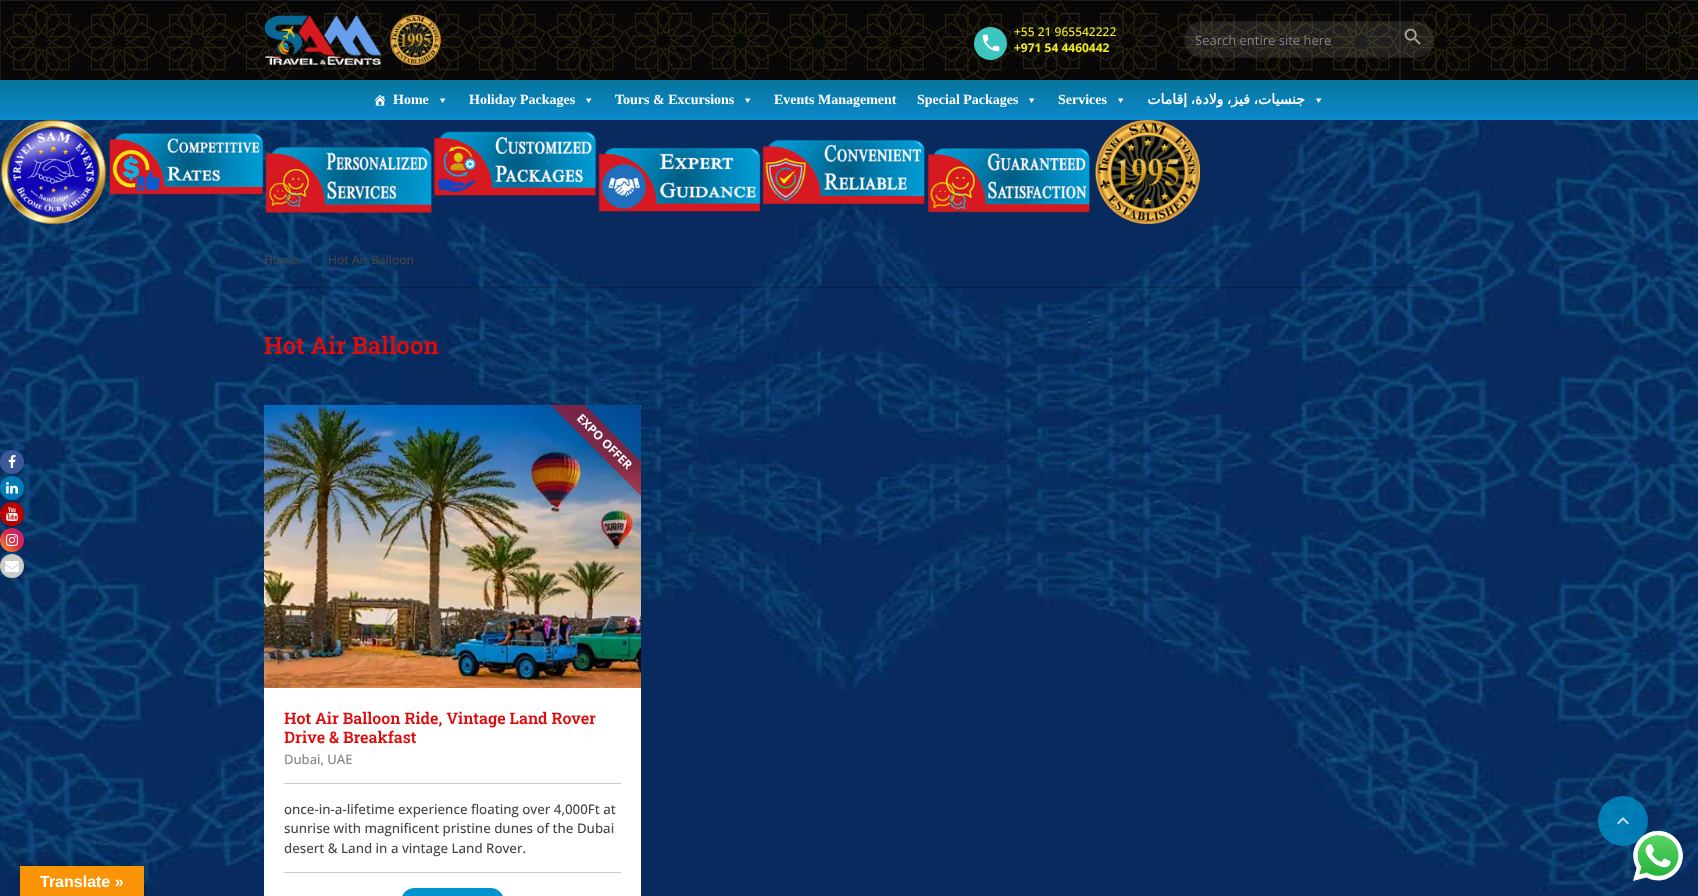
async function draw(canvas) {
  canvas.width = 1698
  canvas.height = 896
  const ctx = canvas.getContext('2d')
  ctx.miterLimit = 4
  ctx.fontKerning = 'normal'
  async function loadImage(src) {
    const img = new Image()
    img.src = src
    await img.decode()
    return img
  }
  let gradient

  ctx.fillStyle = '#fff'
  ctx.fillRect(0, 0, 1698, 896)
  ctx.drawImage(await loadImage('image0.png'), 0, 120, 1698, 776)
  ctx.fillStyle = '#3b5998'
  ctx.beginPath()
  ctx.arc(12, 462, 12, 0, 2 * Math.PI)
  ctx.fill()
  ctx.drawImage(await loadImage('image1.png'), 8, 455, 8, 13)
  ctx.fillStyle = '#007bb6'
  ctx.beginPath()
  ctx.arc(12, 488, 12, 0, 2 * Math.PI)
  ctx.fill()
  ctx.drawImage(await loadImage('image2.png'), 6, 482, 12, 12)
  ctx.fillStyle = '#b00'
  ctx.beginPath()
  ctx.arc(12, 514, 12, 0, 2 * Math.PI)
  ctx.fill()
  ctx.drawImage(await loadImage('image3.png'), 6, 507, 12, 14)
  gradient = ctx.createLinearGradient(0, 552, 24, 528)
  gradient.addColorStop(0, '#f09433')
  gradient.addColorStop(0.25, '#e6683c')
  gradient.addColorStop(0.5, '#dc2743')
  gradient.addColorStop(0.75, '#cc2366')
  gradient.addColorStop(1, '#bc1888')
  ctx.fillStyle = gradient
  ctx.beginPath()
  ctx.arc(12, 540, 12, 0, 2 * Math.PI)
  ctx.fill()
  ctx.drawImage(await loadImage('image4.png'), 6, 534, 12, 12)
  ctx.fillStyle = '#ccc'
  ctx.beginPath()
  ctx.arc(12, 566, 12, 0, 2 * Math.PI)
  ctx.fill()
  ctx.drawImage(await loadImage('image5.png'), 5, 561, 14, 11)
  ctx.drawImage(await loadImage('image6.png'), 0, 0, 1698, 80)
  ctx.drawImage(await loadImage('image7.png'), 264, 15, 177, 50)
  ctx.fillStyle = '#3dc6c0'
  ctx.beginPath()
  ctx.arc(990.5, 43.5, 16.5, 0, 2 * Math.PI)
  ctx.fill()
  ctx.drawImage(await loadImage('image8.png'), 982, 34, 18, 18)
  ctx.font = '500 12px Open Sans'
  ctx.fillStyle = '#ee2'
  ctx.fillText('+55 21 965542222', 1014, 36)
  ctx.font = 'bold 12px Open Sans'
  ctx.fillText('+971 54 4460442', 1014, 52)
  ctx.fillStyle = '#ffffff1a'
  ctx.beginPath()
  ctx.roundRect(1184, 21, 250, 37, 18)
  ctx.fill()
  ctx.beginPath()
  ctx.roundRect(1184.5, 21.5, 249, 36, 17.5)
  ctx.strokeStyle = '#00000033'
  ctx.stroke()
  ctx.font = '13px Open Sans'
  ctx.fillStyle = '#858585'
  ctx.fillText('Search entire site here', 1195, 45)
  ctx.drawImage(await loadImage('image9.png'), 1404, 28, 17, 17)
  gradient = ctx.createLinearGradient(849, 80, 849, 120)
  gradient.addColorStop(0, '#07759c')
  gradient.addColorStop(1, '#0c8acc')
  ctx.fillStyle = gradient
  ctx.fillRect(0, 80, 1698, 40)
  ctx.drawImage(await loadImage('image10.png'), 374, 94, 12, 12)
  ctx.font = 'bold 14px Liberation Serif'
  ctx.fillStyle = '#fff'
  ctx.fillText('Home', 393, 104)
  ctx.beginPath()
  ctx.moveTo(445.5, 98.5)
  ctx.lineTo(442.5, 103)
  ctx.lineTo(440, 98.5)
  ctx.closePath()
  ctx.fill()
  ctx.fillText('Holiday Packages', 469, 104)
  ctx.beginPath()
  ctx.moveTo(591.5, 98.5)
  ctx.lineTo(588.5, 103)
  ctx.lineTo(586, 98.5)
  ctx.closePath()
  ctx.fill()
  ctx.fillText('Tours & Excursions', 615, 104)
  ctx.beginPath()
  ctx.moveTo(750.5, 98.5)
  ctx.lineTo(747.5, 103)
  ctx.lineTo(745, 98.5)
  ctx.closePath()
  ctx.fill()
  ctx.fillText('Events Management', 774, 104)
  ctx.fillText('Special Packages', 917, 104)
  ctx.beginPath()
  ctx.moveTo(1034.5, 98.5)
  ctx.lineTo(1031.5, 103)
  ctx.lineTo(1029, 98.5)
  ctx.closePath()
  ctx.fill()
  ctx.fillText('Services', 1058, 104)
  ctx.beginPath()
  ctx.moveTo(1123.5, 98.5)
  ctx.lineTo(1120.5, 103)
  ctx.lineTo(1118, 98.5)
  ctx.closePath()
  ctx.fill()
  ctx.wordSpacing = '-1px'
  ctx.direction = 'rtl'
  ctx.font = 'bold 14px DejaVu Sans'
  ctx.fillText('جنسيات، فيز، ولادة، إقامات', 1305, 104)
  ctx.beginPath()
  ctx.moveTo(1321.5, 98.5)
  ctx.lineTo(1318.5, 103)
  ctx.lineTo(1316, 98.5)
  ctx.closePath()
  ctx.fill()
  ctx.drawImage(await loadImage('image11.png'), 0, 120, 1200, 104)
  ctx.fillStyle = '#00000033'
  ctx.fillRect(264, 287, 1170, 1)
  ctx.wordSpacing = '0px'
  ctx.direction = 'ltr'
  ctx.font = '500 12px Open Sans'
  ctx.fillStyle = '#454545'
  ctx.fillText('Home', 264, 264)
  ctx.fillStyle = '#00000033'
  ctx.fillRect(312, 251, 1, 17)
  ctx.fillStyle = '#454545'
  ctx.fillText('Hot Air Balloon', 328, 264)
  ctx.font = '600 24px Roboto Slab'
  ctx.fillStyle = '#dd0d0d'
  ctx.fillText('Hot Air Balloon', 264, 354)
  ctx.fillStyle = '#fff'
  ctx.beginPath()
  ctx.roundRect(264, 405, 377, 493, 2)
  ctx.fill()
  ctx.drawImage(await loadImage('image12.png'), 264, 405, 377, 283)
  ctx.save()
  ctx.beginPath()
  ctx.rect(551, 405, 90, 90)
  ctx.clip()
  ctx.fillStyle = '#dd00008c'
  ctx.beginPath()
  ctx.moveTo(553, 373)
  ctx.lineTo(673, 494)
  ctx.lineTo(656, 511)
  ctx.lineTo(536, 390)
  ctx.closePath()
  ctx.fill()
  ctx.restore()
  ctx.font = 'bold 12px Open Sans'
  ctx.save()
  ctx.translate(576, 419)
  ctx.rotate(45 * Math.PI / 180)
  ctx.fillText('EXPO OFFER', 0, 0)
  ctx.restore()
  ctx.fillStyle = '#ccc'
  ctx.fillRect(284, 783, 337, 1)
  ctx.font = '600 16px Roboto Slab'
  ctx.fillStyle = '#dd0d0d'
  ctx.fillText('Hot Air Balloon Ride, Vintage Land Rover', 284, 724)
  ctx.fillText('Drive & Breakfast', 284, 743)
  ctx.font = '500 13px Open Sans'
  ctx.fillStyle = '#858585'
  ctx.fillText('Dubai, UAE', 284, 764)
  ctx.fillStyle = '#ccc'
  ctx.fillRect(284, 872, 337, 1)
  ctx.font = '500 13.3px Open Sans'
  ctx.fillStyle = '#454545'
  ctx.fillText('once-in-a-lifetime experience floating over 4,000Ft at', 284, 814)
  ctx.fillText('sunrise with magnificent pristine dunes of the Dubai', 284, 833)
  ctx.fillText('desert & Land in a vintage Land Rover.', 284, 853)
  ctx.fillStyle = '#0094ce'
  ctx.beginPath()
  ctx.roundRect(401, 888, 103, 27, 19)
  ctx.fill()
  ctx.fillStyle = '#0094cebf'
  ctx.beginPath()
  ctx.arc(1623, 821, 25, 0, 2 * Math.PI)
  ctx.fill()
  ctx.drawImage(await loadImage('image13.png'), 1617, 817, 12, 8)
  ctx.fillStyle = '#0000004d'
  ctx.filter = 'blur(4.5px)'
  ctx.beginPath()
  ctx.rect(20, 866, 124, 30)
  ctx.fill()
  ctx.filter = 'none'
  ctx.fillStyle = '#f89406'
  ctx.fillRect(20, 866, 124, 30)
  ctx.font = 'bold 16px Liberation Sans'
  ctx.fillStyle = '#fff'
  ctx.fillText('Translate »', 40, 887)
  ctx.drawImage(await loadImage('image14.png'), 1633, 831, 50, 50)
}

draw(document.querySelector('canvas'))
